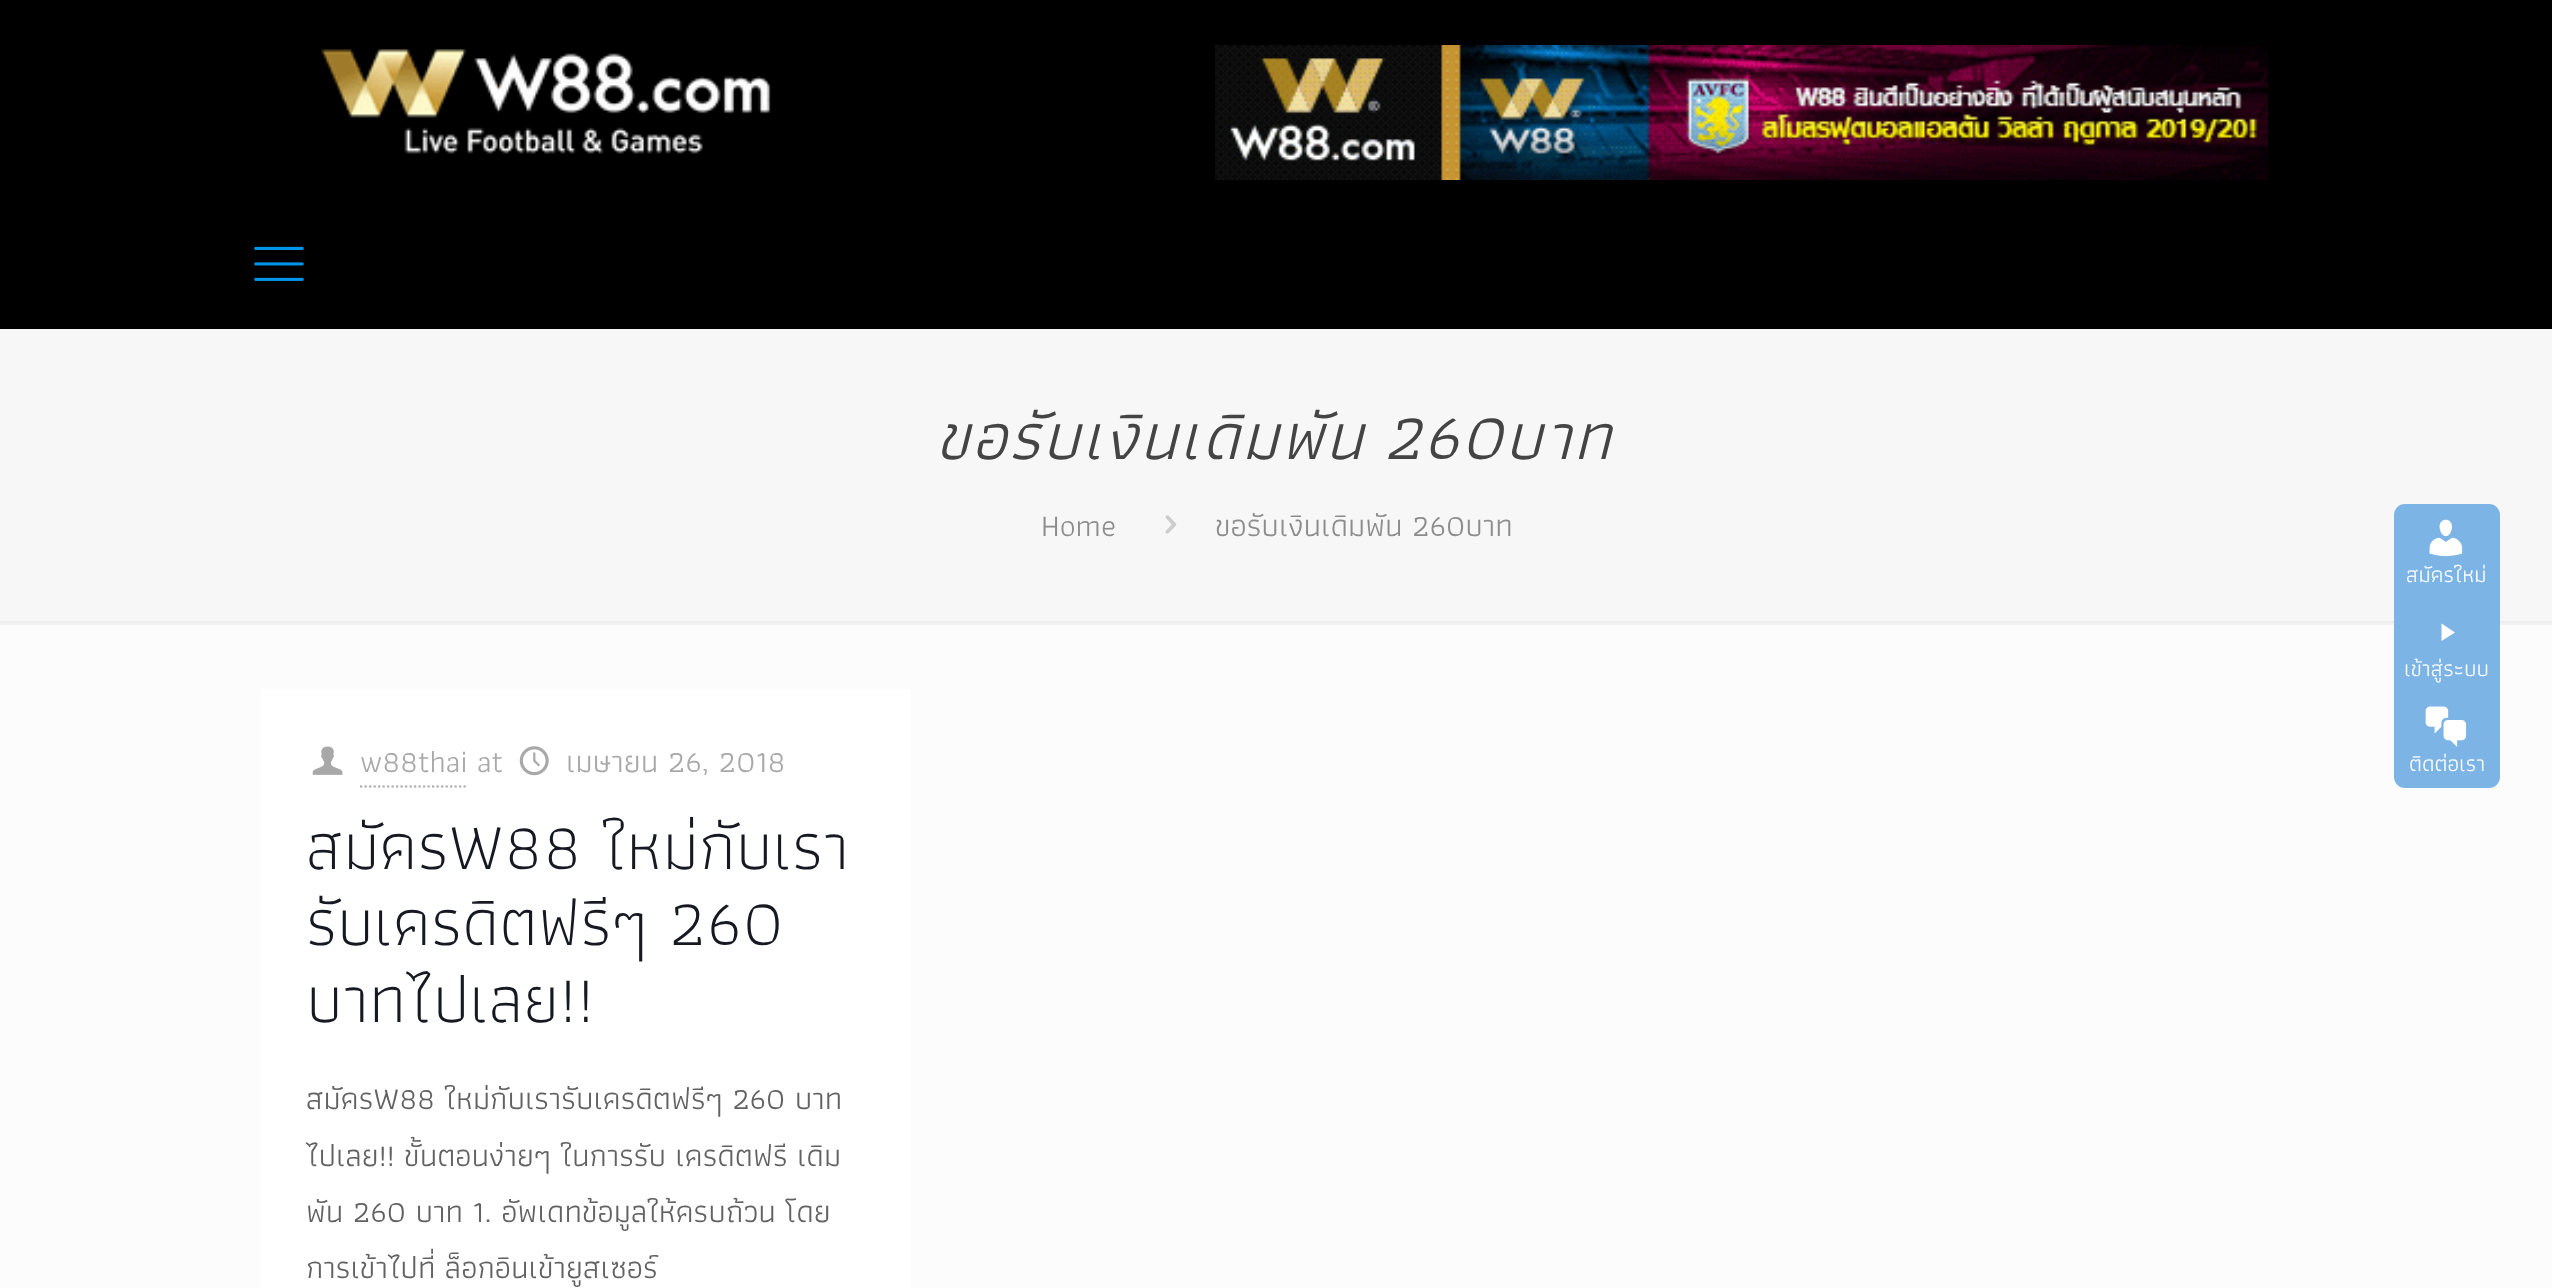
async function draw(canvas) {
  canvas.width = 2552
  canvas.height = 1288
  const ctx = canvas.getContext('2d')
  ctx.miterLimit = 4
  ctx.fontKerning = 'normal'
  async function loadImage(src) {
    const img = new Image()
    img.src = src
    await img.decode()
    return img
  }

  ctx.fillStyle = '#fcfcfc'
  ctx.fillRect(0, 0, 2552, 1288)
  ctx.fillStyle = '#000'
  ctx.fillRect(0, 0, 2552, 329)
  ctx.drawImage(await loadImage('image0.png'), 321, 49, 450, 105)
  ctx.drawImage(await loadImage('image1.png'), 1215, 45, 1053, 135)
  ctx.drawImage(await loadImage('image2.png'), 254, 246, 50, 35)
  ctx.fillStyle = '#f7f7f7'
  ctx.fillRect(0, 329, 2552, 292)
  ctx.letterSpacing = '2.25px'
  ctx.wordSpacing = '-4px'
  ctx.font = 'italic 67.5px Athiti'
  ctx.fillStyle = '#444'
  ctx.fillText('ขอรับเงินเดิมพัน 260บาท', 936, 459)
  ctx.letterSpacing = '0px'
  ctx.wordSpacing = '0px'
  ctx.font = '31.5px Athiti'
  ctx.fillStyle = '#8c8c8c'
  ctx.fillText('Home', 1041, 536)
  ctx.drawImage(await loadImage('image3.png'), 1165, 515, 12, 19)
  ctx.fillText('ขอรับเงินเดิมพัน 260บาท', 1215, 536)
  ctx.drawImage(await loadImage('image4.png'), 0, 621, 2552, 4)
  ctx.fillStyle = '#fff'
  ctx.fillRect(261, 689, 650, 599)
  ctx.drawImage(await loadImage('image5.png'), 312, 746, 31, 29)
  ctx.fillStyle = '#a8a8a8'
  ctx.fillText('w88thai at', 360, 772)
  ctx.beginPath()
  ctx.moveTo(360, 786.5)
  ctx.lineTo(468, 786.5)
  ctx.strokeStyle = '#a8a8a8'
  ctx.lineWidth = 2.2
  ctx.setLineDash([2.25, 2.25])
  ctx.stroke()
  ctx.drawImage(await loadImage('image6.png'), 519, 746, 30, 30)
  ctx.fillText('เมษายน 26, 2018', 566, 772)
  ctx.font = '300 67.5px Athiti'
  ctx.fillStyle = '#161922'
  ctx.fillText('สมัครW88 ใหม่กับเรา', 306, 869)
  ctx.fillText('รับเครดิตฟรีๆ 260', 306, 945)
  ctx.fillText('บาทไปเลย!!', 306, 1022)
  ctx.font = '31.5px Athiti'
  ctx.fillStyle = '#626262'
  ctx.fillText('สมัครW88 ใหม่กับเรารับเครดิตฟรีๆ 260 บาท', 306, 1109)
  ctx.fillText('ไปเลย!! ขั้นตอนง่ายๆ ในการรับ เครดิตฟรี เดิม', 306, 1166)
  ctx.fillText('พัน 260 บาท 1. อัพเดทข้อมูลให้ครบถ้วน โดย', 306, 1222)
  ctx.fillText('การเข้าไปที่ ล็อกอินเข้ายูสเซอร์', 306, 1278)
  ctx.fillStyle = '#7db4e6'
  ctx.beginPath()
  ctx.roundRect(2394, 504, 106, 284, 11)
  ctx.fill()
  ctx.drawImage(await loadImage('image7.png'), 2429, 519, 34, 38)
  ctx.font = '22.5px Athiti'
  ctx.fillStyle = '#fff'
  ctx.fillText('สมัครใหม่', 2406, 582)
  ctx.beginPath()
  ctx.moveTo(2441.5, 623.5)
  ctx.lineTo(2455, 632.5)
  ctx.lineTo(2441.5, 641)
  ctx.closePath()
  ctx.fill()
  ctx.fillText('เข้าสู่ระบบ', 2404, 676)
  ctx.drawImage(await loadImage('image8.png'), 2425, 706, 42, 41)
  ctx.fillText('ติดต่อเรา', 2409, 771)
}

draw(document.querySelector('canvas'))
